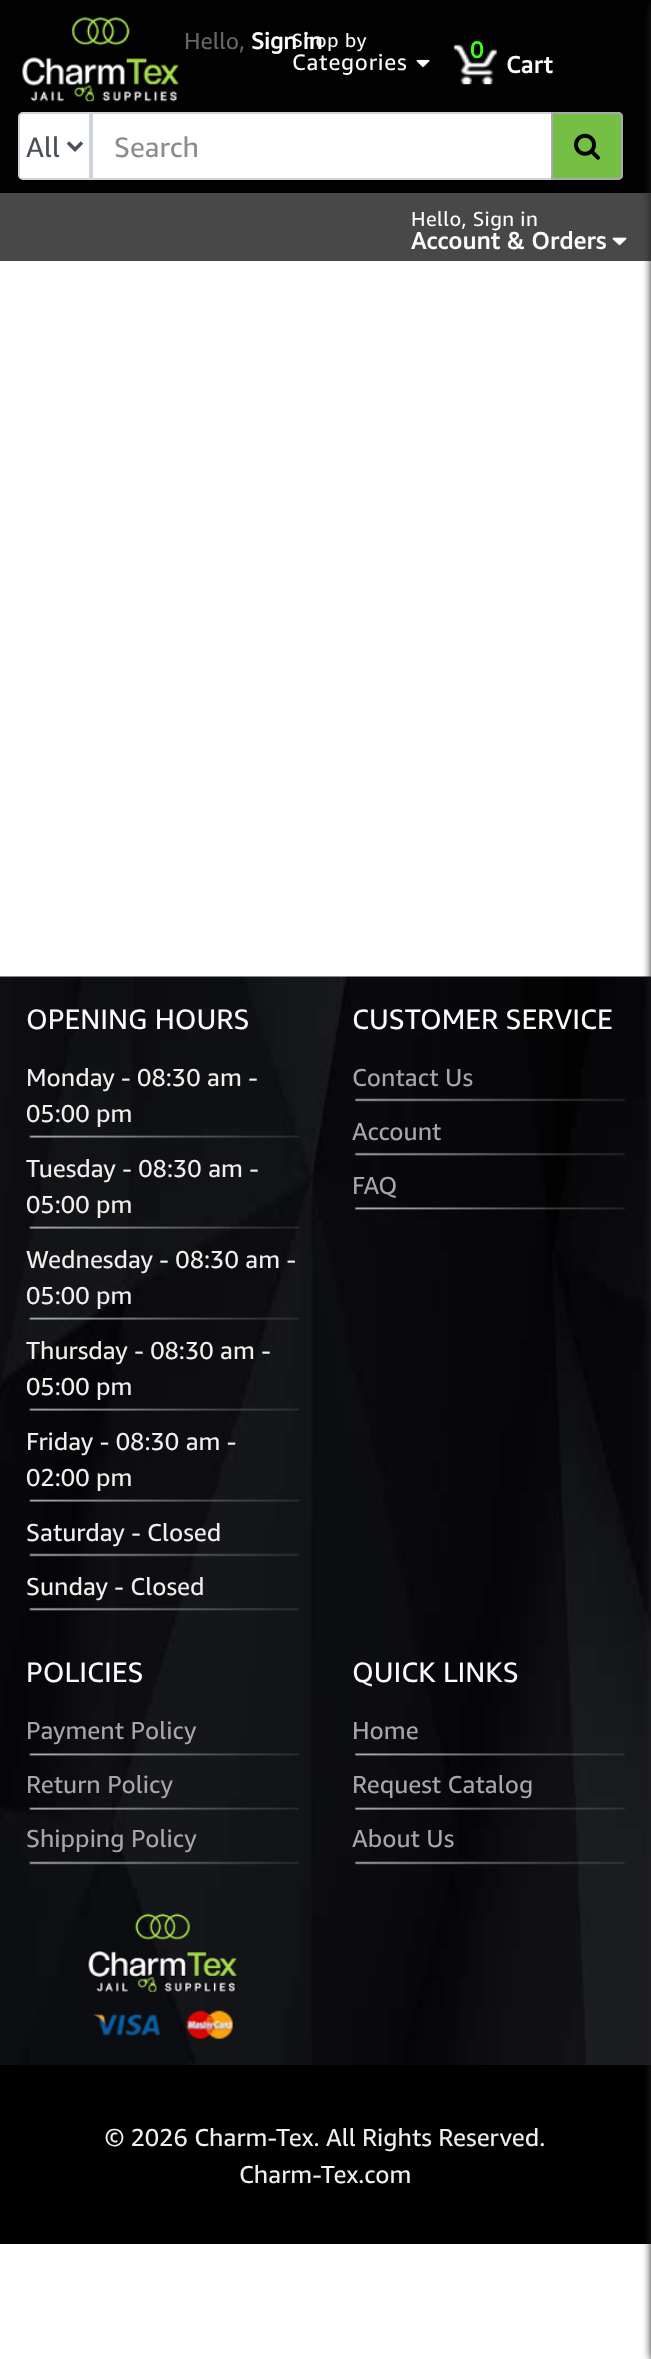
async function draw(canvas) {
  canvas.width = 651
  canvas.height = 2359
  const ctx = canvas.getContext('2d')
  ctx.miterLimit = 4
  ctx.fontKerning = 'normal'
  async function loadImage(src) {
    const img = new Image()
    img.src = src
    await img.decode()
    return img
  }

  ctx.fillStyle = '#fff'
  ctx.fillRect(0, 0, 651, 2359)
  ctx.fillStyle = '#020202'
  ctx.fillRect(0, 0, 651, 193)
  ctx.drawImage(await loadImage('image0.png'), 22, 17, 157, 85)
  ctx.font = '23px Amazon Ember'
  ctx.fillStyle = '#666'
  ctx.fillText('Hello,', 184, 49)
  ctx.font = 'bold 23px Amazon Ember'
  ctx.fillStyle = '#fcfbfc'
  ctx.fillText('Sign in', 251, 49)
  ctx.letterSpacing = '0.75px'
  ctx.font = '19px Amazon Ember'
  ctx.fillText('Shop by', 292, 47)
  ctx.font = '22.5px Amazon Ember'
  ctx.fillText('Categories', 292, 70)
  ctx.drawImage(await loadImage('image1.png'), 416, 59, 14, 9)
  ctx.fillStyle = '#484848'
  ctx.fillRect(0, 193, 651, 68)
  ctx.fillStyle = '#000'
  ctx.fillRect(0, 2065, 651, 179)
  ctx.drawImage(await loadImage('image5.png'), 0, 976, 651, 1089)
  ctx.fillStyle = '#222'
  ctx.filter = 'blur(4.5px)'
  ctx.beginPath()
  ctx.roundRect(651, 4, 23, 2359, 9)
  ctx.fill()
  ctx.filter = 'none'
  ctx.drawImage(await loadImage('image2.png'), 453, 44, 44, 41)
  ctx.letterSpacing = '1px'
  ctx.font = 'bold 23px Amazon Ember'
  ctx.fillStyle = '#39ff14'
  ctx.fillText('0', 470, 58)
  ctx.letterSpacing = '0.5px'
  ctx.font = 'bold 23.5px Amazon Ember'
  ctx.fillStyle = '#fcfbfc'
  ctx.fillText('Cart', 506, 73)
  ctx.letterSpacing = '0.4px'
  ctx.font = '20.25px Amazon Ember'
  ctx.fillText('Hello, Sign in', 411, 226)
  ctx.letterSpacing = '0.5px'
  ctx.font = 'bold 23.5px Amazon Ember'
  ctx.fillText('Account & Orders', 411, 249)
  ctx.drawImage(await loadImage('image3.png'), 612, 237, 15, 9)
  ctx.fillStyle = '#fff'
  ctx.beginPath()
  ctx.roundRect(19, 113, 71, 66, [4, 0, 0, 4])
  ctx.fill()
  ctx.strokeStyle = '#ced4da'
  ctx.lineWidth = 2
  ctx.stroke()
  ctx.beginPath()
  ctx.moveTo(68, 142.5)
  ctx.lineTo(75, 149.5)
  ctx.lineTo(82, 142.5)
  ctx.strokeStyle = '#495057'
  ctx.lineWidth = 3.5
  ctx.stroke()
  ctx.letterSpacing = '0px'
  ctx.font = '28px Amazon Ember'
  ctx.fillStyle = '#495057'
  ctx.fillText('All', 26, 157)
  ctx.fillStyle = '#fff'
  ctx.fillRect(93, 114, 458, 64)
  ctx.beginPath()
  ctx.roundRect(92, 113, 530, 66, [0, 4, 4, 0])
  ctx.strokeStyle = '#ced4da'
  ctx.lineWidth = 2
  ctx.stroke()
  ctx.fillStyle = '#8c8c8c'
  ctx.fillText('Search', 114, 157)
  ctx.fillStyle = '#75c044'
  ctx.beginPath()
  ctx.roundRect(552, 113, 70, 66, [0, 4, 4, 0])
  ctx.fill()
  ctx.strokeStyle = '#a8a9ae'
  ctx.stroke()
  ctx.drawImage(await loadImage('image4.png'), 574, 133, 26, 27)
  ctx.fillStyle = '#fcfbfc'
  ctx.fillText('OPENING HOURS', 26, 1029)
  ctx.drawImage(await loadImage('image6.png'), 29, 1135, 271, 3)
  ctx.font = '24.5px Amazon Ember'
  ctx.fillStyle = '#eff0ec'
  ctx.fillText('Monday - 08:30 am -', 26, 1086)
  ctx.fillText('05:00 pm', 26, 1122)
  ctx.drawImage(await loadImage('image7.png'), 29, 1226, 271, 3)
  ctx.fillText('Tuesday - 08:30 am -', 26, 1177)
  ctx.fillText('05:00 pm', 26, 1213)
  ctx.drawImage(await loadImage('image8.png'), 29, 1317, 271, 3)
  ctx.fillText('Wednesday - 08:30 am -', 26, 1268)
  ctx.fillText('05:00 pm', 26, 1304)
  ctx.drawImage(await loadImage('image9.png'), 29, 1408, 271, 3)
  ctx.fillText('Thursday - 08:30 am -', 26, 1359)
  ctx.fillText('05:00 pm', 26, 1395)
  ctx.drawImage(await loadImage('image10.png'), 29, 1499, 271, 3)
  ctx.fillText('Friday - 08:30 am -', 26, 1450)
  ctx.fillText('02:00 pm', 26, 1486)
  ctx.drawImage(await loadImage('image11.png'), 29, 1553, 270, 4)
  ctx.fillText('Saturday - Closed', 26, 1541)
  ctx.drawImage(await loadImage('image12.png'), 29, 1607, 270, 4)
  ctx.fillText('Sunday - Closed', 26, 1595)
  ctx.font = '28px Amazon Ember'
  ctx.fillStyle = '#fcfbfc'
  ctx.fillText('CUSTOMER SERVICE', 352, 1029)
  ctx.drawImage(await loadImage('image13.png'), 354, 1098, 271, 4)
  ctx.font = '24.5px Amazon Ember'
  ctx.fillStyle = '#a7a6a8'
  ctx.fillText('Contact Us', 352, 1086)
  ctx.drawImage(await loadImage('image14.png'), 354, 1152, 271, 4)
  ctx.fillText('Account', 352, 1140)
  ctx.drawImage(await loadImage('image15.png'), 354, 1207, 271, 3)
  ctx.fillText('FAQ', 352, 1194)
  ctx.font = '28px Amazon Ember'
  ctx.fillStyle = '#fcfbfc'
  ctx.fillText('POLICIES', 26, 1682)
  ctx.drawImage(await loadImage('image16.png'), 29, 1753, 271, 3)
  ctx.font = '24.5px Amazon Ember'
  ctx.fillStyle = '#a7a6a8'
  ctx.fillText('Payment Policy', 26, 1739)
  ctx.drawImage(await loadImage('image17.png'), 29, 1807, 271, 3)
  ctx.fillText('Return Policy', 26, 1793)
  ctx.drawImage(await loadImage('image18.png'), 29, 1861, 270, 4)
  ctx.fillText('Shipping Policy', 26, 1847)
  ctx.font = '28px Amazon Ember'
  ctx.fillStyle = '#fcfbfc'
  ctx.fillText('QUICK LINKS', 352, 1682)
  ctx.drawImage(await loadImage('image19.png'), 354, 1753, 271, 3)
  ctx.font = '24.5px Amazon Ember'
  ctx.fillStyle = '#a7a6a8'
  ctx.fillText('Home', 352, 1739)
  ctx.drawImage(await loadImage('image20.png'), 354, 1807, 271, 3)
  ctx.fillText('Request Catalog', 352, 1793)
  ctx.drawImage(await loadImage('image21.png'), 354, 1861, 271, 4)
  ctx.fillText('About Us', 352, 1847)
  ctx.drawImage(await loadImage('image22.png'), 87, 1913, 150, 80)
  ctx.drawImage(await loadImage('image23.png'), 93, 2010, 140, 29)
  ctx.fillStyle = '#eff0ec'
  ctx.fillText('© 2026 Charm-Tex. All Rights Reserved.', 105, 2146)
  ctx.fillText('Charm-Tex.com', 239, 2183)
}

draw(document.querySelector('canvas'))
